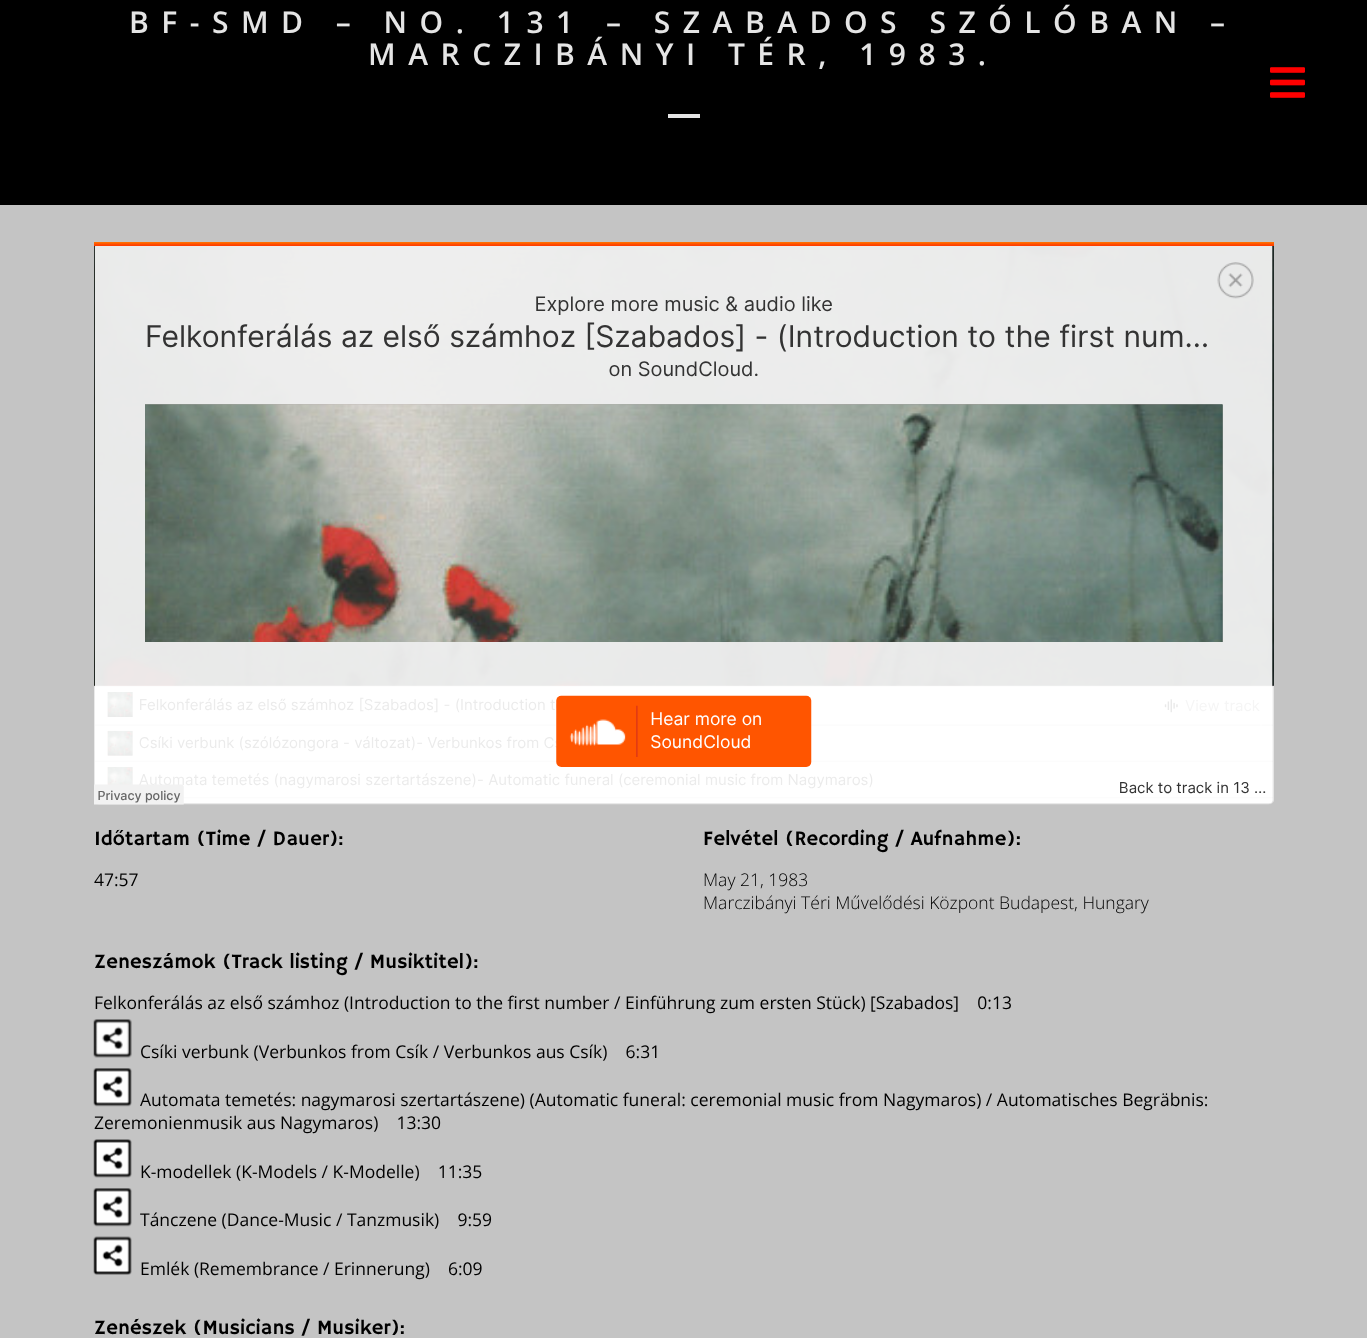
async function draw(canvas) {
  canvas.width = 1367
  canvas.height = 1338
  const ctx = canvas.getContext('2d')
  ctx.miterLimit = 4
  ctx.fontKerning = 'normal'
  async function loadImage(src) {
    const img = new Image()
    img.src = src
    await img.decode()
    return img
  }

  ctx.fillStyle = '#000'
  ctx.fillRect(0, 0, 1367, 1338)
  ctx.letterSpacing = '12.5px'
  ctx.font = '600 30px Open Sans'
  ctx.fillStyle = '#e5e5e5'
  ctx.fillText('BF-SMD – NO. 131 – SZABADOS SZÓLÓBAN –', 129, 33)
  ctx.fillText('MARCZIBÁNYI TÉR, 1983.', 368, 65)
  ctx.fillRect(668, 114, 32, 4)
  ctx.fillStyle = '#c4c4c4'
  ctx.fillRect(0, 205, 1367, 1133)
  ctx.drawImage(await loadImage('image0.png'), 94, 242, 1180, 563)
  ctx.letterSpacing = '0px'
  ctx.font = '20.5px Hammersmith One'
  ctx.fillStyle = '#000'
  ctx.fillText('Időtartam (Time / Dauer):', 94, 845)
  ctx.font = '17.5px Open Sans'
  ctx.fillText('47:57', 94, 886)
  ctx.font = '20.5px Hammersmith One'
  ctx.fillText('Felvétel (Recording / Aufnahme):', 703, 845)
  ctx.font = '300 17.5px Open Sans'
  ctx.fillText('May 21, 1983', 703, 886)
  ctx.fillText('Marczibányi Téri Művelődési Központ Budapest, Hungary', 703, 909)
  ctx.font = '20.5px Hammersmith One'
  ctx.fillText('Zeneszámok (Track listing / Musiktitel):', 94, 968)
  ctx.font = '17.5px Open Sans'
  ctx.fillText('Felkonferálás az első számhoz (Introduction to the first number / Einführung zum ersten Stück) [Szabados]    0:13', 94, 1009)
  ctx.drawImage(await loadImage('image1.png'), 93, 1019, 39, 39)
  ctx.fillText('Csíki verbunk (Verbunkos from Csík / Verbunkos aus Csík)    6:31', 140, 1058)
  ctx.drawImage(await loadImage('image2.png'), 93, 1068, 39, 39)
  ctx.fillText('Automata temetés: nagymarosi szertartászene) (Automatic funeral: ceremonial music from Nagymaros) / Automatisches Begräbnis:', 140, 1106)
  ctx.fillText('Zeremonienmusik aus Nagymaros)    13:30', 94, 1129)
  ctx.drawImage(await loadImage('image3.png'), 93, 1139, 39, 39)
  ctx.fillText('K-modellek (K-Models / K-Modelle)    11:35', 140, 1178)
  ctx.drawImage(await loadImage('image2.png'), 93, 1188, 39, 39)
  ctx.fillText('Tánczene (Dance-Music / Tanzmusik)    9:59', 140, 1226)
  ctx.drawImage(await loadImage('image4.png'), 93, 1236, 39, 39)
  ctx.fillText('Emlék (Remembrance / Erinnerung)    6:09', 140, 1275)
  ctx.font = '20.5px Hammersmith One'
  ctx.fillText('Zenészek (Musicians / Musiker):', 94, 1334)
  ctx.drawImage(await loadImage('image5.png'), 1270, 67, 35, 31)
}

draw(document.querySelector('canvas'))
